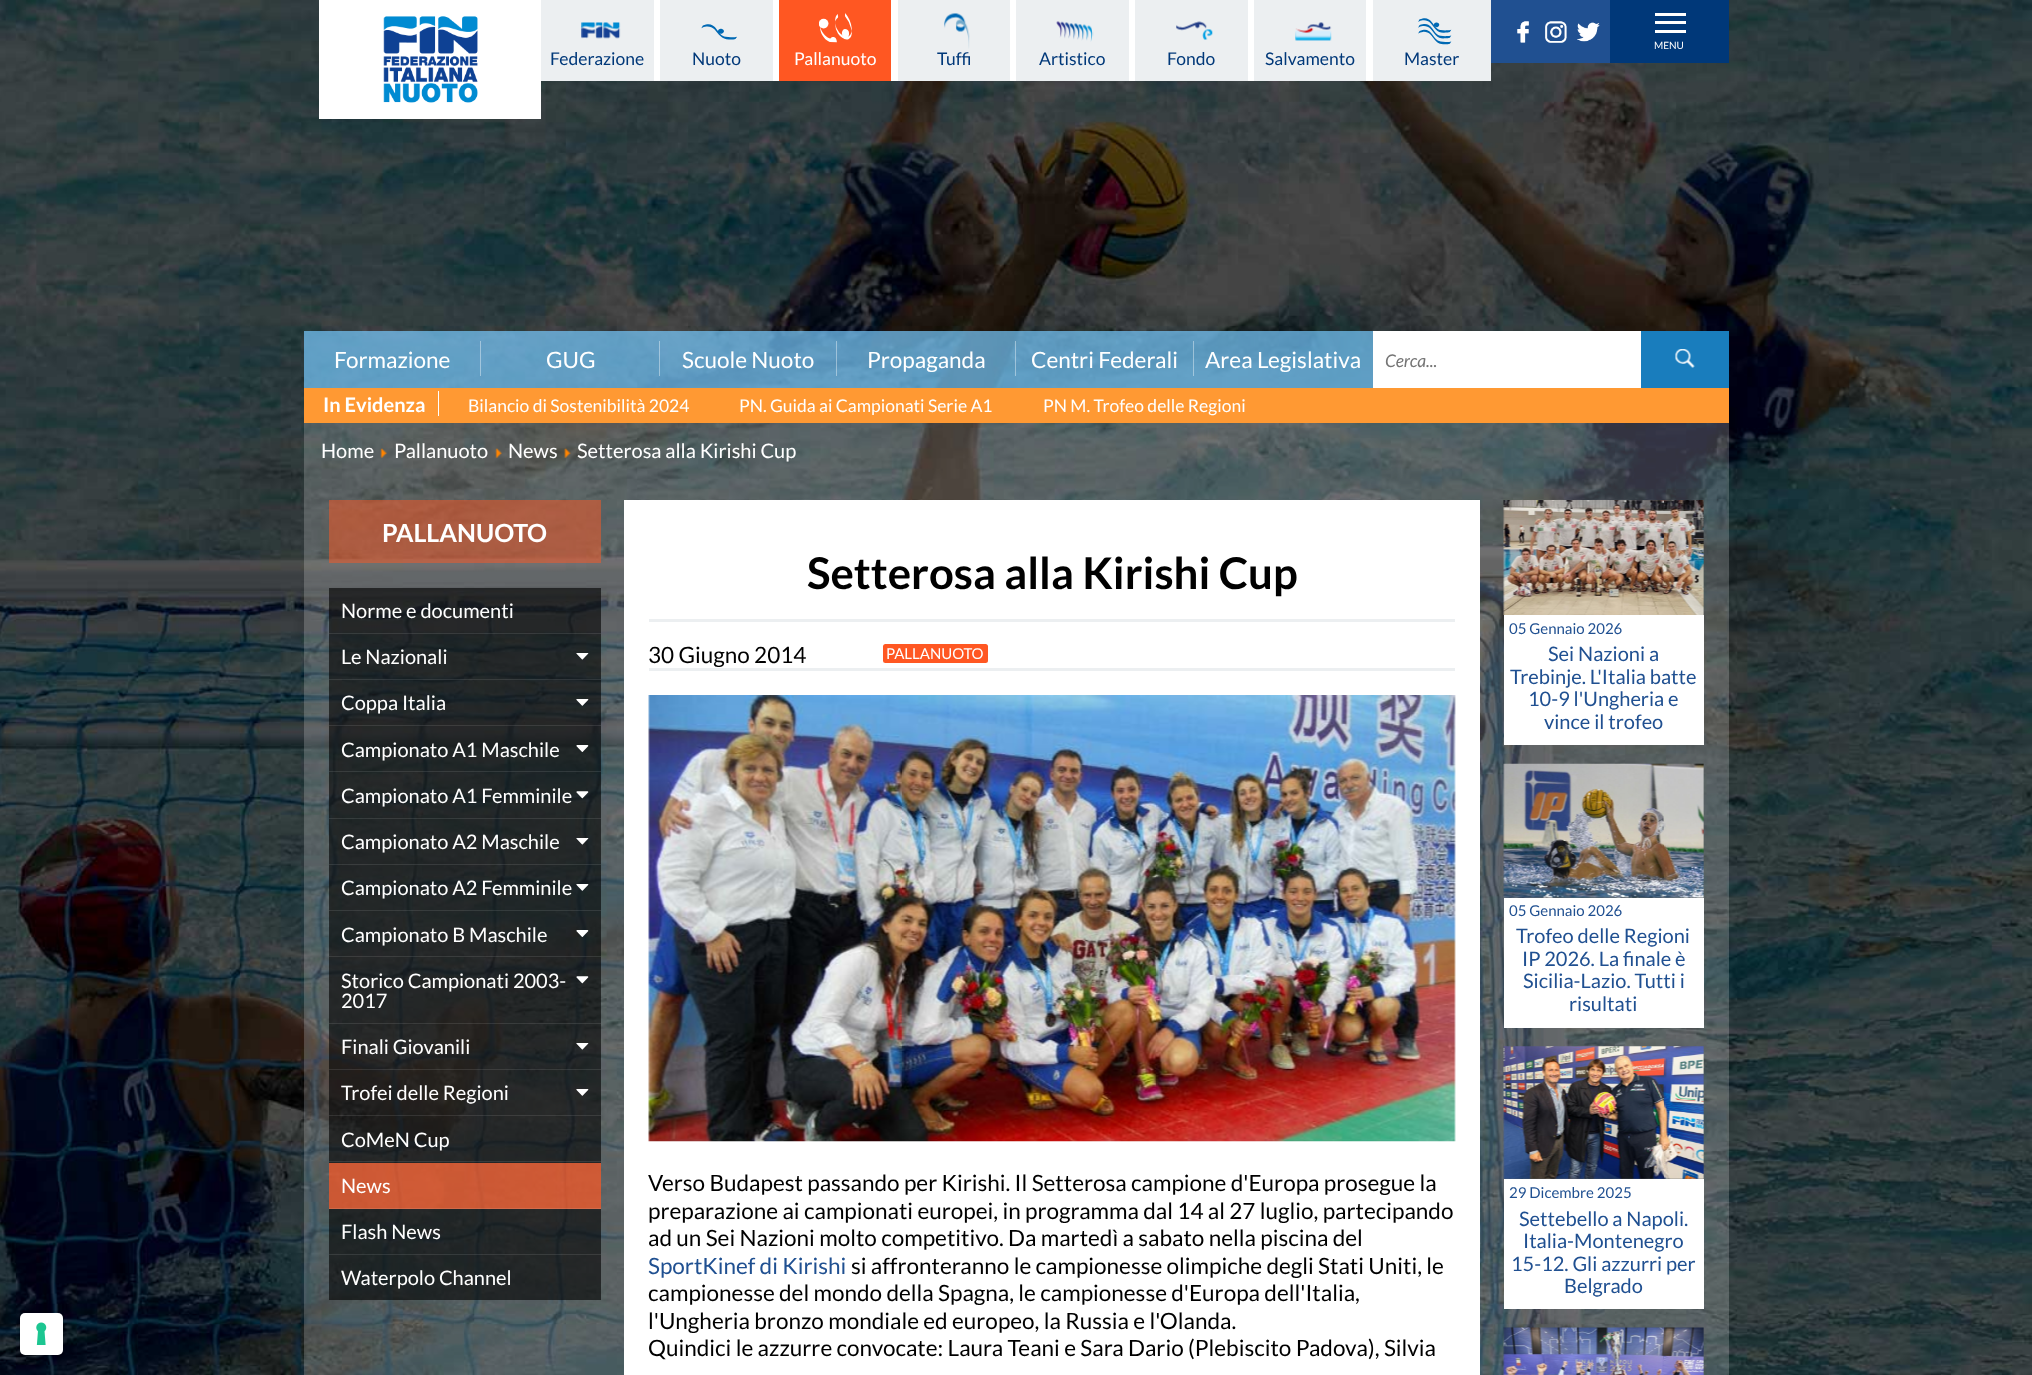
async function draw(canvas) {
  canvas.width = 2032
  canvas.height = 1375
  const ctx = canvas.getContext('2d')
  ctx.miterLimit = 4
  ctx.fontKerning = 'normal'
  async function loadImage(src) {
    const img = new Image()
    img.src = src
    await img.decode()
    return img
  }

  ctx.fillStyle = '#fff'
  ctx.fillRect(0, 0, 2032, 1375)
  ctx.drawImage(await loadImage('image0.png'), 0, 0, 2032, 1375)
  ctx.beginPath()
  ctx.roundRect(19.5, 1311.5, 44, 44, 5.5)
  ctx.strokeStyle = '#00000026'
  ctx.stroke()
  ctx.beginPath()
  ctx.roundRect(20, 1313, 43, 42, 5)
  ctx.fill()
  ctx.drawImage(await loadImage('image1.png'), 36, 1322, 11, 23)
  ctx.fillRect(319, 0, 222, 119)
  ctx.drawImage(await loadImage('image2.png'), 383, 16, 95, 87)
  ctx.fillStyle = '#205091'
  ctx.fillRect(1491, 0, 119, 63)
  ctx.drawImage(await loadImage('image3.png'), 1517, 21, 12, 22)
  ctx.drawImage(await loadImage('image4.png'), 1545, 21, 22, 22)
  ctx.drawImage(await loadImage('image5.png'), 1577, 22, 23, 20)
  ctx.fillStyle = '#003879'
  ctx.fillRect(1610, 0, 119, 63)
  ctx.fillStyle = '#fff'
  ctx.fillRect(1655, 13, 31, 3)
  ctx.fillRect(1655, 21, 31, 3)
  ctx.fillRect(1655, 30, 31, 3)
  ctx.font = '10px Lato'
  ctx.fillText('MENU', 1654, 49)
  ctx.fillStyle = '#eceff1'
  ctx.fillRect(541, 0, 113, 81)
  ctx.fillStyle = '#fff'
  ctx.fillRect(654, 0, 6, 81)
  ctx.drawImage(await loadImage('image6.png'), 581, 22, 40, 17)
  ctx.font = '17.5px Lato'
  ctx.fillStyle = '#003879'
  ctx.fillText('Federazione', 550, 65)
  ctx.fillStyle = '#eceff1'
  ctx.fillRect(660, 0, 113, 81)
  ctx.fillStyle = '#fff'
  ctx.fillRect(773, 0, 6, 81)
  ctx.drawImage(await loadImage('image7.png'), 701, 24, 36, 16)
  ctx.fillStyle = '#003879'
  ctx.fillText('Nuoto', 692, 65)
  ctx.fillStyle = '#ff5722'
  ctx.fillRect(779, 0, 112, 81)
  ctx.fillStyle = '#fff'
  ctx.fillRect(891, 0, 7, 81)
  ctx.drawImage(await loadImage('image8.png'), 819, 13, 33, 30)
  ctx.fillText('Pallanuoto', 794, 65)
  ctx.fillStyle = '#eceff1'
  ctx.fillRect(898, 0, 112, 81)
  ctx.fillStyle = '#fff'
  ctx.fillRect(1010, 0, 6, 81)
  ctx.drawImage(await loadImage('image9.png'), 944, 13, 26, 36)
  ctx.fillStyle = '#003879'
  ctx.fillText('Tuffi', 937, 65)
  ctx.fillStyle = '#eceff1'
  ctx.fillRect(1016, 0, 113, 81)
  ctx.fillStyle = '#fff'
  ctx.fillRect(1129, 0, 6, 81)
  ctx.drawImage(await loadImage('image10.png'), 1056, 21, 38, 21)
  ctx.fillStyle = '#003879'
  ctx.fillText('Artistico', 1039, 65)
  ctx.fillStyle = '#eceff1'
  ctx.fillRect(1135, 0, 113, 81)
  ctx.fillStyle = '#fff'
  ctx.fillRect(1248, 0, 6, 81)
  ctx.drawImage(await loadImage('image11.png'), 1176, 21, 37, 19)
  ctx.fillStyle = '#003879'
  ctx.fillText('Fondo', 1167, 65)
  ctx.fillStyle = '#eceff1'
  ctx.fillRect(1254, 0, 112, 81)
  ctx.fillStyle = '#fff'
  ctx.fillRect(1366, 0, 7, 81)
  ctx.drawImage(await loadImage('image12.png'), 1295, 22, 37, 19)
  ctx.fillStyle = '#003879'
  ctx.fillText('Salvamento', 1265, 65)
  ctx.fillStyle = '#eceff1'
  ctx.fillRect(1373, 0, 118, 81)
  ctx.drawImage(await loadImage('image13.png'), 1418, 18, 34, 27)
  ctx.fillStyle = '#003879'
  ctx.fillText('Master', 1404, 65)
  ctx.fillStyle = '#77cbffb3'
  ctx.fillRect(304, 331, 1069, 57)
  ctx.fillStyle = '#ffffff66'
  ctx.fillRect(480, 341, 1, 35)
  ctx.font = '22.5px Lato'
  ctx.fillStyle = '#fff'
  ctx.fillText('Formazione', 334, 368)
  ctx.fillStyle = '#ffffff66'
  ctx.fillRect(659, 341, 1, 35)
  ctx.fillStyle = '#fff'
  ctx.fillText('GUG', 546, 368)
  ctx.fillStyle = '#ffffff66'
  ctx.fillRect(836, 341, 1, 35)
  ctx.fillStyle = '#fff'
  ctx.fillText('Scuole Nuoto', 682, 368)
  ctx.fillStyle = '#ffffff66'
  ctx.fillRect(1015, 341, 1, 35)
  ctx.fillStyle = '#fff'
  ctx.fillText('Propaganda', 867, 368)
  ctx.fillStyle = '#ffffff66'
  ctx.fillRect(1193, 341, 1, 35)
  ctx.fillStyle = '#fff'
  ctx.fillText('Centri Federali', 1031, 368)
  ctx.fillText('Area Legislativa', 1205, 368)
  ctx.fillRect(1373, 331, 268, 57)
  ctx.font = 'italic 17.5px Lato'
  ctx.fillStyle = '#757575'
  ctx.fillText('Cerca...', 1385, 367)
  ctx.fillStyle = '#197dbd'
  ctx.fillRect(1641, 331, 88, 57)
  ctx.drawImage(await loadImage('image14.png'), 1675, 349, 20, 19)
  ctx.fillStyle = '#f93'
  ctx.fillRect(304, 388, 1425, 35)
  ctx.fillStyle = '#fff'
  ctx.fillRect(438, 391, 1, 25)
  ctx.font = 'bold 20px Lato'
  ctx.fillText('In Evidenza', 323, 412)
  ctx.font = '17.5px Lato'
  ctx.fillText('Bilancio di Sostenibilità 2024', 468, 412)
  ctx.fillText('PN. Guida ai Campionati Serie A1', 739, 412)
  ctx.fillText('PN M. Trofeo delle Regioni', 1043, 412)
  ctx.fillStyle = '#ffffff33'
  ctx.fillRect(304, 423, 1425, 52)
  ctx.font = '20px Lato'
  ctx.fillStyle = '#fff'
  ctx.fillText('Home', 321, 458)
  ctx.drawImage(await loadImage('image15.png'), 380, 448, 7, 10)
  ctx.fillText('Pallanuoto', 394, 458)
  ctx.drawImage(await loadImage('image16.png'), 495, 448, 7, 10)
  ctx.fillText('News', 508, 458)
  ctx.drawImage(await loadImage('image17.png'), 564, 448, 7, 10)
  ctx.fillText('Setterosa alla Kirishi Cup', 577, 458)
  ctx.fillStyle = '#ffffff33'
  ctx.fillRect(304, 475, 1425, 900)
  ctx.fillStyle = '#ff572280'
  ctx.fillRect(329, 500, 272, 63)
  ctx.font = 'bold 25px Lato'
  ctx.fillStyle = '#fff'
  ctx.fillText('PALLANUOTO', 382, 542)
  ctx.fillStyle = '#00000099'
  ctx.fillRect(329, 588, 272, 46)
  ctx.fillStyle = '#ffffff1a'
  ctx.fillRect(329, 633, 272, 1)
  ctx.font = '20px Lato'
  ctx.fillStyle = '#fff'
  ctx.fillText('Norme e documenti', 341, 618)
  ctx.fillStyle = '#00000099'
  ctx.fillRect(329, 634, 272, 46)
  ctx.fillStyle = '#ffffff1a'
  ctx.fillRect(329, 679, 272, 1)
  ctx.fillStyle = '#fff'
  ctx.fillText('Le Nazionali', 341, 664)
  ctx.drawImage(await loadImage('image18.png'), 576, 653, 13, 7)
  ctx.fillStyle = '#00000099'
  ctx.fillRect(329, 680, 272, 46)
  ctx.fillStyle = '#ffffff1a'
  ctx.fillRect(329, 725, 272, 1)
  ctx.fillStyle = '#fff'
  ctx.fillText('Coppa Italia', 341, 710)
  ctx.drawImage(await loadImage('image19.png'), 576, 699, 13, 7)
  ctx.fillStyle = '#00000099'
  ctx.fillRect(329, 726, 272, 47)
  ctx.fillStyle = '#ffffff1a'
  ctx.fillRect(329, 771, 272, 1)
  ctx.fillStyle = '#fff'
  ctx.fillText('Campionato A1 Maschile', 341, 757)
  ctx.drawImage(await loadImage('image20.png'), 576, 745, 13, 7)
  ctx.fillStyle = '#00000099'
  ctx.fillRect(329, 773, 272, 46)
  ctx.fillStyle = '#ffffff1a'
  ctx.fillRect(329, 818, 272, 1)
  ctx.fillStyle = '#fff'
  ctx.fillText('Campionato A1 Femminile', 341, 803)
  ctx.drawImage(await loadImage('image21.png'), 576, 791, 13, 8)
  ctx.fillStyle = '#00000099'
  ctx.fillRect(329, 819, 272, 46)
  ctx.fillStyle = '#ffffff1a'
  ctx.fillRect(329, 864, 272, 1)
  ctx.fillStyle = '#fff'
  ctx.fillText('Campionato A2 Maschile', 341, 849)
  ctx.drawImage(await loadImage('image22.png'), 576, 838, 13, 7)
  ctx.fillStyle = '#00000099'
  ctx.fillRect(329, 865, 272, 46)
  ctx.fillStyle = '#ffffff1a'
  ctx.fillRect(329, 910, 272, 1)
  ctx.fillStyle = '#fff'
  ctx.fillText('Campionato A2 Femminile', 341, 895)
  ctx.drawImage(await loadImage('image23.png'), 576, 884, 13, 7)
  ctx.fillStyle = '#00000099'
  ctx.fillRect(329, 911, 272, 47)
  ctx.fillStyle = '#ffffff1a'
  ctx.fillRect(329, 956, 272, 1)
  ctx.fillStyle = '#fff'
  ctx.fillText('Campionato B Maschile', 341, 942)
  ctx.drawImage(await loadImage('image24.png'), 576, 930, 13, 7)
  ctx.fillStyle = '#00000099'
  ctx.fillRect(329, 958, 272, 66)
  ctx.fillStyle = '#ffffff1a'
  ctx.fillRect(329, 1023, 272, 1)
  ctx.fillStyle = '#fff'
  ctx.fillText('Storico Campionati 2003-', 341, 988)
  ctx.drawImage(await loadImage('image25.png'), 576, 976, 13, 8)
  ctx.fillText('2017', 341, 1008)
  ctx.fillStyle = '#00000099'
  ctx.fillRect(329, 1024, 272, 46)
  ctx.fillStyle = '#ffffff1a'
  ctx.fillRect(329, 1069, 272, 1)
  ctx.fillStyle = '#fff'
  ctx.fillText('Finali Giovanili', 341, 1054)
  ctx.drawImage(await loadImage('image26.png'), 576, 1043, 13, 7)
  ctx.fillStyle = '#00000099'
  ctx.fillRect(329, 1070, 272, 46)
  ctx.fillStyle = '#ffffff1a'
  ctx.fillRect(329, 1115, 272, 1)
  ctx.fillStyle = '#fff'
  ctx.fillText('Trofei delle Regioni', 341, 1100)
  ctx.drawImage(await loadImage('image27.png'), 576, 1089, 13, 7)
  ctx.fillStyle = '#00000099'
  ctx.fillRect(329, 1116, 272, 47)
  ctx.fillStyle = '#ffffff1a'
  ctx.fillRect(329, 1161, 272, 1)
  ctx.fillStyle = '#fff'
  ctx.fillText('CoMeN Cup', 341, 1147)
  ctx.fillStyle = '#ff5722b3'
  ctx.fillRect(329, 1163, 272, 46)
  ctx.fillStyle = '#ffffff1a'
  ctx.fillRect(329, 1208, 272, 1)
  ctx.fillStyle = '#fff'
  ctx.fillText('News', 341, 1193)
  ctx.fillStyle = '#00000099'
  ctx.fillRect(329, 1209, 272, 46)
  ctx.fillStyle = '#ffffff1a'
  ctx.fillRect(329, 1254, 272, 1)
  ctx.fillStyle = '#fff'
  ctx.fillText('Flash News', 341, 1239)
  ctx.fillStyle = '#00000099'
  ctx.fillRect(329, 1255, 272, 45)
  ctx.fillStyle = '#fff'
  ctx.fillText('Waterpolo Channel', 341, 1285)
  ctx.fillRect(624, 500, 856, 875)
  ctx.font = 'bold 43.75px Lato'
  ctx.fillStyle = '#000'
  ctx.fillText('Setterosa alla Kirishi Cup', 807, 589)
  ctx.fillStyle = '#eceff1'
  ctx.fillRect(649, 619, 806, 3)
  ctx.fillRect(649, 668, 806, 3)
  ctx.font = '22.5px Lato'
  ctx.fillStyle = '#000'
  ctx.fillText('30 Giugno 2014', 648, 663)
  ctx.fillStyle = '#ff5722'
  ctx.beginPath()
  ctx.roundRect(883, 644, 105, 19, 2.5)
  ctx.fill()
  ctx.font = '15px Lato'
  ctx.fillStyle = '#fff'
  ctx.fillText('PALLANUOTO', 886, 659)
  ctx.drawImage(await loadImage('image28.png'), 648, 695, 808, 447)
  ctx.font = '22.5px Lato'
  ctx.fillStyle = '#000'
  ctx.fillText('Verso Budapest passando per Kirishi. Il Setterosa campione d\'Europa prosegue la', 648, 1191)
  ctx.fillText('preparazione ai campionati europei, in programma dal 14 al 27 luglio, partecipando', 648, 1219)
  ctx.fillText('ad un Sei Nazioni molto competitivo. Da martedì a sabato nella piscina del', 648, 1246)
  ctx.fillStyle = '#205091'
  ctx.fillText('SportKinef di Kirishi', 648, 1274)
  ctx.fillStyle = '#000'
  ctx.fillText('si affronteranno le campionesse olimpiche degli Stati Uniti, le', 851, 1274)
  ctx.fillText('campionesse del mondo della Spagna, le campionesse d\'Europa dell\'Italia,', 648, 1301)
  ctx.fillText('l\'Ungheria bronzo mondiale ed europeo, la Russia e l\'Olanda.', 648, 1329)
  ctx.fillText('Quindici le azzurre convocate: Laura Teani e Sara Dario (Plebiscito Padova), Silvia', 648, 1356)
  ctx.drawImage(await loadImage('image29.png'), 1503, 500, 201, 115)
  ctx.fillStyle = '#fff'
  ctx.fillRect(1504, 615, 200, 130)
  ctx.font = '15px Lato'
  ctx.fillStyle = '#205091'
  ctx.fillText('05 Gennaio 2026', 1509, 634)
  ctx.font = '20px Lato'
  ctx.fillText('Sei Nazioni a', 1548, 661)
  ctx.fillText('Trebinje. L\'Italia batte', 1510, 684)
  ctx.fillText('10-9 l\'Ungheria e', 1528, 706)
  ctx.fillText('vince il trofeo', 1544, 729)
  ctx.drawImage(await loadImage('image30.png'), 1503, 763, 201, 135)
  ctx.fillStyle = '#fff'
  ctx.fillRect(1504, 898, 200, 130)
  ctx.font = '15px Lato'
  ctx.fillStyle = '#205091'
  ctx.fillText('05 Gennaio 2026', 1509, 916)
  ctx.font = '20px Lato'
  ctx.fillText('Trofeo delle Regioni', 1516, 943)
  ctx.fillText('IP 2026. La finale è', 1522, 966)
  ctx.fillText('Sicilia-Lazio. Tutti i', 1523, 988)
  ctx.fillText('risultati', 1569, 1011)
  ctx.drawImage(await loadImage('image31.png'), 1503, 1046, 201, 133)
  ctx.fillStyle = '#fff'
  ctx.fillRect(1504, 1179, 200, 130)
  ctx.font = '15px Lato'
  ctx.fillStyle = '#205091'
  ctx.fillText('29 Dicembre 2025', 1509, 1198)
  ctx.font = '20px Lato'
  ctx.fillText('Settebello a Napoli.', 1519, 1226)
  ctx.fillText('Italia-Montenegro', 1523, 1248)
  ctx.fillText('15-12. Gli azzurri per', 1511, 1271)
  ctx.fillText('Belgrado', 1564, 1293)
  ctx.drawImage(await loadImage('image32.png'), 1503, 1327, 201, 48)
}

draw(document.querySelector('canvas'))
